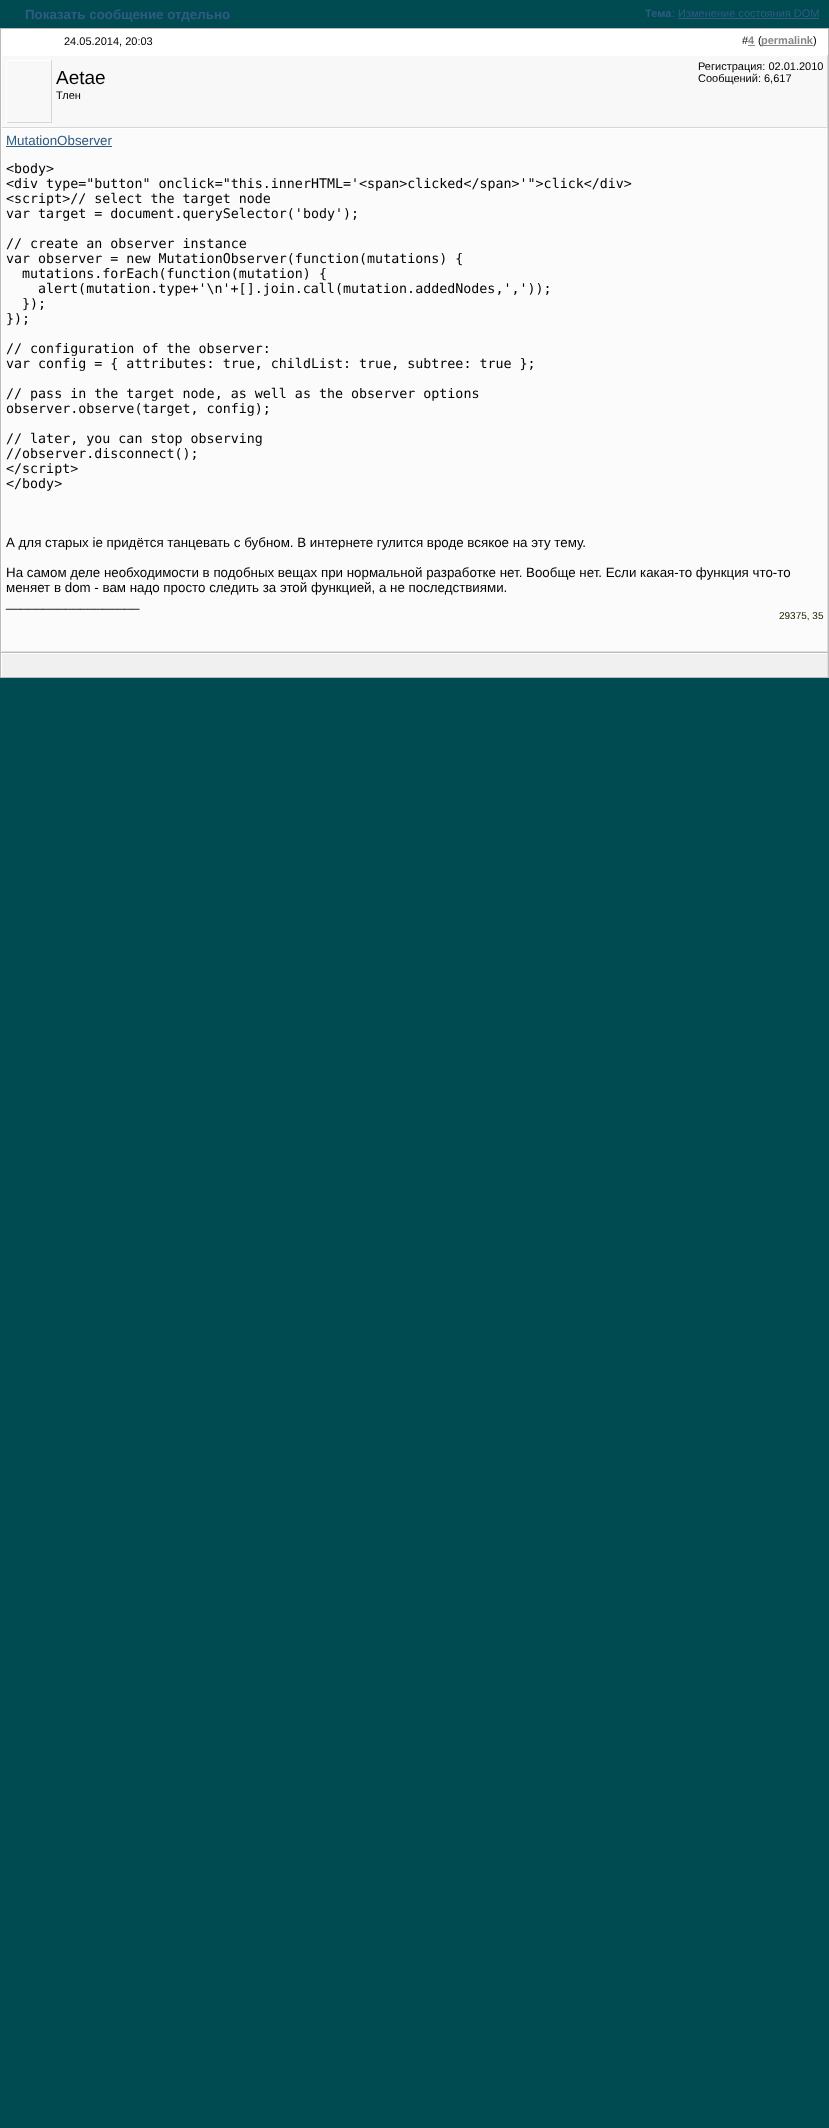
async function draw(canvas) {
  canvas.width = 829
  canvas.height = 2128
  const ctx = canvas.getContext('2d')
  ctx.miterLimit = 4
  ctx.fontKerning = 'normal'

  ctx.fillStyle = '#004b52'
  ctx.fillRect(0, 0, 829, 2128)
  ctx.font = 'bold 13.33px Liberation Sans'
  ctx.fillStyle = '#2e5b82'
  ctx.fillText('Показать сообщение отдельно', 25, 19)
  ctx.font = 'bold 11px Liberation Sans'
  ctx.fillText('Тема', 645, 17)
  ctx.font = '11px Liberation Sans'
  ctx.fillText(': Изменение состояния DOM', 672, 17)
  ctx.fillRect(678, 18, 141, 1)
  ctx.strokeStyle = '#bbb'
  ctx.strokeRect(0.5, 28.5, 828, 624)
  ctx.fillStyle = '#fff'
  ctx.fillRect(1, 29, 827, 27)
  ctx.fillStyle = '#000'
  ctx.fillText('24.05.2014, 20:03', 64, 45)
  ctx.fillText('#', 742, 44)
  ctx.font = 'bold 11px Liberation Sans'
  ctx.fillStyle = '#888'
  ctx.fillText('4', 748, 44)
  ctx.fillRect(748, 45, 7, 1)
  ctx.font = '11px Liberation Sans'
  ctx.fillStyle = '#000'
  ctx.fillText('(', 758, 44)
  ctx.fillStyle = '#888'
  ctx.fillRect(761, 45, 52, 1)
  ctx.font = 'bold 11px Liberation Sans'
  ctx.fillText('permalink', 761, 44)
  ctx.font = '11px Liberation Sans'
  ctx.fillStyle = '#000'
  ctx.fillText(')', 813, 44)
  ctx.fillStyle = '#f8f8f8'
  ctx.fillRect(2, 56, 825, 71)
  ctx.fillStyle = '#d7d7d7'
  ctx.fillRect(827, 55, 1, 73)
  ctx.fillRect(1, 127, 827, 1)
  ctx.fillStyle = '#fff'
  ctx.fillRect(1, 55, 1, 73)
  ctx.fillRect(6, 60, 46, 1)
  ctx.fillStyle = '#d7d7d7'
  ctx.fillRect(51, 60, 1, 63)
  ctx.fillRect(6, 122, 46, 1)
  ctx.fillStyle = '#fff'
  ctx.fillRect(6, 60, 1, 63)
  ctx.font = '19px Liberation Sans'
  ctx.fillStyle = '#000'
  ctx.fillText('Aetae', 56, 84)
  ctx.font = '11px Liberation Sans'
  ctx.fillText('Тлен', 56, 99)
  ctx.fillText('Регистрация: 02.01.2010', 698, 70)
  ctx.fillText('Сообщений: 6,617', 698, 82)
  ctx.fillStyle = '#fbfbfb'
  ctx.fillRect(2, 129, 825, 522)
  ctx.fillStyle = '#fff'
  ctx.fillRect(1, 128, 827, 1)
  ctx.fillStyle = '#e0e0e0'
  ctx.fillRect(827, 128, 1, 524)
  ctx.fillRect(1, 651, 827, 1)
  ctx.fillStyle = '#fff'
  ctx.fillRect(1, 128, 1, 524)
  ctx.font = '13.33px Liberation Sans'
  ctx.fillStyle = '#2e5b82'
  ctx.fillText('MutationObserver', 6, 145)
  ctx.fillRect(6, 146, 106, 1)
  ctx.font = '13.33px DejaVu Sans Mono'
  ctx.fillStyle = '#000'
  ctx.fillText('<body>', 6, 173)
  ctx.fillText('<div type="button" onclick="this.innerHTML=\'<span>clicked<\/span>\'">click<\/div>', 6, 188)
  ctx.fillText('<script>// select the target node', 6, 203)
  ctx.fillText('var target = document.querySelector(\'body\');', 6, 218)
  ctx.fillText('// create an observer instance', 6, 248)
  ctx.fillText('var observer = new MutationObserver(function(mutations) {', 6, 263)
  ctx.fillText('mutations.forEach(function(mutation) {', 22, 278)
  ctx.fillText('alert(mutation.type+\'\\n\'+[].join.call(mutation.addedNodes,\',\'));', 38, 293)
  ctx.fillText('});', 22, 308)
  ctx.fillText('});', 6, 323)
  ctx.fillText('// configuration of the observer:', 6, 353)
  ctx.fillText('var config = { attributes: true, childList: true, subtree: true };', 6, 368)
  ctx.fillText('// pass in the target node, as well as the observer options', 6, 398)
  ctx.fillText('observer.observe(target, config);', 6, 413)
  ctx.fillText('// later, you can stop observing', 6, 443)
  ctx.fillText('//observer.disconnect();', 6, 458)
  ctx.fillText('<\/script>', 6, 473)
  ctx.fillText('<\/body>', 6, 488)
  ctx.font = '13.33px Liberation Sans'
  ctx.fillText('А для старых ie придётся танцевать с бубном. В интернете гулится вроде всякое на эту тему.', 6, 547)
  ctx.fillText('На самом деле необходимости в подобных вещах при нормальной разработке нет. Вообще нет. Если какая-то функция что-то', 6, 577)
  ctx.fillText('меняет в dom - вам надо просто следить за этой функцией, а не последствиями.', 6, 592)
  ctx.fillText('__________________', 6, 607)
  ctx.font = '10px Liberation Sans'
  ctx.fillStyle = '#220'
  ctx.fillText('29375, 35', 779, 619)
  ctx.fillStyle = '#bbb'
  ctx.fillRect(828, 653, 1, 25)
  ctx.fillRect(0, 677, 829, 1)
  ctx.fillRect(0, 653, 1, 25)
  ctx.fillStyle = '#f0f0f0'
  ctx.fillRect(2, 654, 825, 23)
  ctx.fillStyle = '#fff'
  ctx.fillRect(1, 653, 827, 1)
  ctx.fillStyle = '#e0e0e0'
  ctx.fillRect(827, 653, 1, 24)
  ctx.fillStyle = '#fff'
  ctx.fillRect(1, 653, 1, 24)
}

draw(document.querySelector('canvas'))
